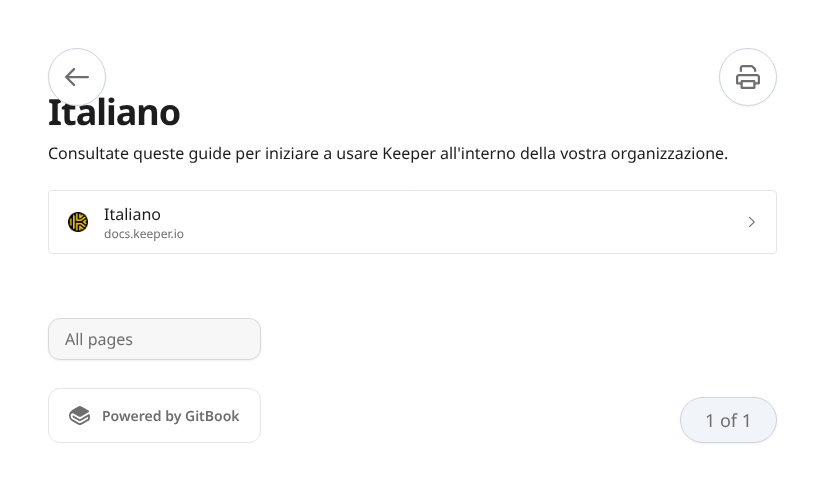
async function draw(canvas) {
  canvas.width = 825
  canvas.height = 491
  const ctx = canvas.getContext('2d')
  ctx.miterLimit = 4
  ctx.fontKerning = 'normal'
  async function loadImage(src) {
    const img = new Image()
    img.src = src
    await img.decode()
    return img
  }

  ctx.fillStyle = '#fff'
  ctx.fillRect(0, 0, 825, 491)
  ctx.fillStyle = '#0000000d'
  ctx.filter = 'blur(1px)'
  ctx.beginPath()
  ctx.roundRect(48, 49, 58, 58, 29)
  ctx.fill()
  ctx.filter = 'none'
  ctx.letterSpacing = '-1px'
  ctx.font = 'bold 36px Noto Sans'
  ctx.fillStyle = '#1d1d1d'
  ctx.fillText('Italiano', 48, 125)
  ctx.fillStyle = '#fff'
  ctx.beginPath()
  ctx.arc(77, 77, 28.5, 0, 2 * Math.PI)
  ctx.fill()
  ctx.strokeStyle = '#cad5e2'
  ctx.stroke()
  ctx.drawImage(await loadImage('image0.png'), 65, 68, 24, 18)
  ctx.fillStyle = '#0000000d'
  ctx.filter = 'blur(1px)'
  ctx.beginPath()
  ctx.roundRect(719, 49, 58, 58, 29)
  ctx.fill()
  ctx.filter = 'none'
  ctx.fillStyle = '#fff'
  ctx.beginPath()
  ctx.arc(748, 77, 28.5, 0, 2 * Math.PI)
  ctx.fill()
  ctx.stroke()
  ctx.drawImage(await loadImage('image1.png'), 736, 65, 24, 24)
  ctx.letterSpacing = '0px'
  ctx.font = '16px Noto Sans'
  ctx.fillStyle = '#1d1d1d'
  ctx.fillText('Consultate queste guide per iniziare a usare Keeper all\'interno della vostra organizzazione.', 48, 159)
  ctx.drawImage(await loadImage('image2.png'), 68, 212, 20, 20)
  ctx.drawImage(await loadImage('image3.png'), 749, 216, 6, 12)
  ctx.beginPath()
  ctx.roundRect(48.5, 190.5, 728, 63, 3.5)
  ctx.strokeStyle = '#e5e5e5'
  ctx.stroke()
  ctx.fillText('Italiano', 104, 220)
  ctx.font = '12px Noto Sans'
  ctx.fillStyle = '#6e6e6e'
  ctx.fillText('docs.keeper.io', 104, 238)
  ctx.fillStyle = '#d9d9d966'
  ctx.filter = 'blur(1px)'
  ctx.beginPath()
  ctx.roundRect(48, 319, 213, 42, 12)
  ctx.fill()
  ctx.filter = 'none'
  ctx.fillStyle = '#f7f7f7'
  ctx.beginPath()
  ctx.roundRect(48.5, 318.5, 212, 41, 11.5)
  ctx.fill()
  ctx.strokeStyle = '#d9d9d9'
  ctx.stroke()
  ctx.font = '16px Noto Sans'
  ctx.fillStyle = '#6e6e6e'
  ctx.fillText('All pages', 65, 345)
  ctx.beginPath()
  ctx.roundRect(48.5, 388.5, 212, 54, 11.5)
  ctx.strokeStyle = '#e5e5e5'
  ctx.stroke()
  ctx.drawImage(await loadImage('image4.png'), 69, 406, 21, 19)
  ctx.font = '600 14px Noto Sans'
  ctx.fillText('Powered by GitBook', 102, 421)
  ctx.fillStyle = '#0000000d'
  ctx.filter = 'blur(1px)'
  ctx.beginPath()
  ctx.roundRect(680, 398, 97, 46, 23)
  ctx.fill()
  ctx.filter = 'none'
  ctx.fillStyle = '#f1f5f9'
  ctx.beginPath()
  ctx.roundRect(680.5, 397.5, 96, 45, 22.5)
  ctx.fill()
  ctx.strokeStyle = '#cad5e2'
  ctx.stroke()
  ctx.font = '18px Noto Sans'
  ctx.fillStyle = '#6e6e6e'
  ctx.fillText('1 of 1', 705, 427)
}

draw(document.querySelector('canvas'))
